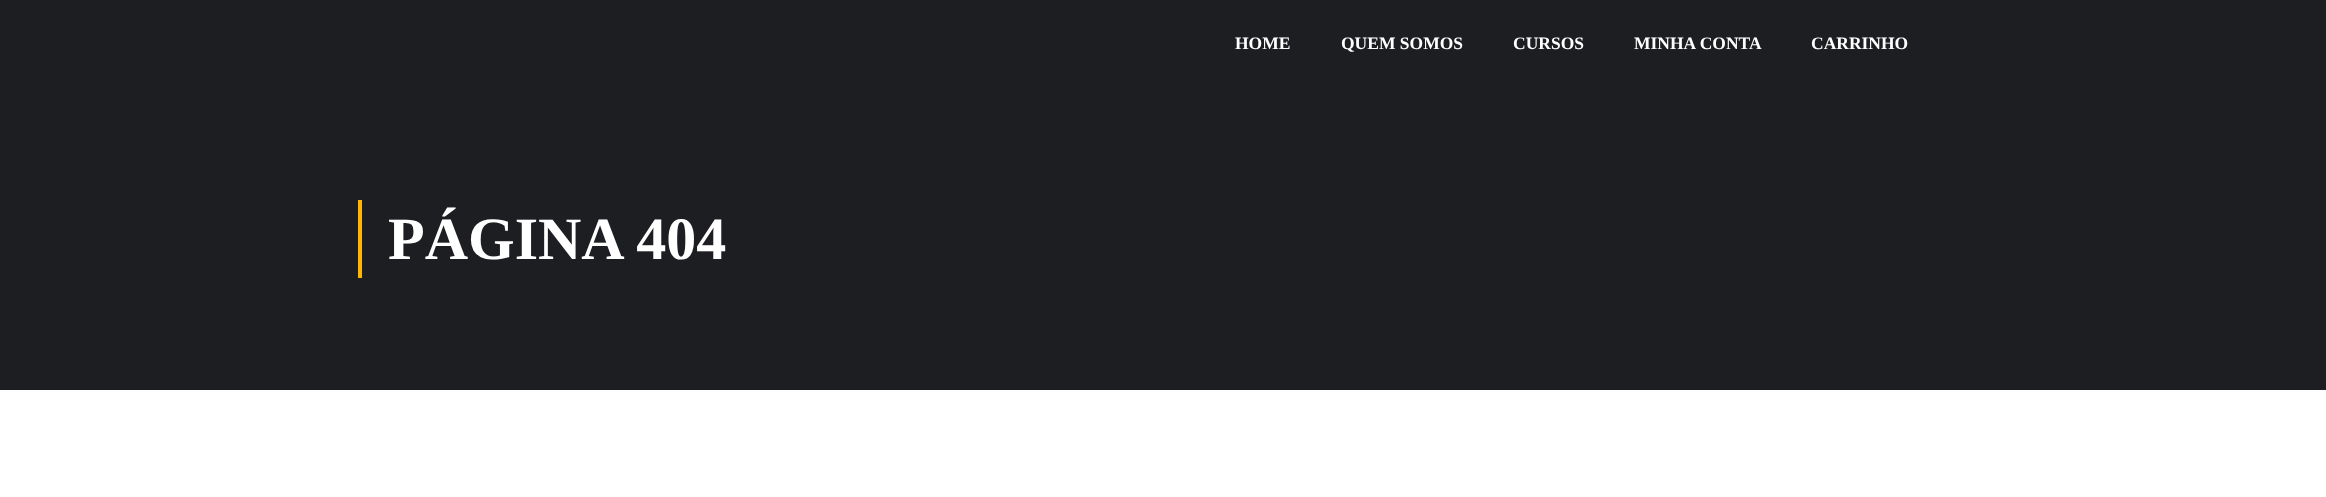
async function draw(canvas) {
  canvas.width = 2326
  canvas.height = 497
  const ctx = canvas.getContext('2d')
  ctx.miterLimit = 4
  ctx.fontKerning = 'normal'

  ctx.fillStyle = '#fff'
  ctx.fillRect(0, 0, 2326, 497)
  ctx.fillStyle = '#1c1e22'
  ctx.fillRect(0, 0, 2326, 390)
  ctx.font = 'bold 17.5px Liberation Serif'
  ctx.fillStyle = '#fff'
  ctx.fillText('HOME', 1235, 49)
  ctx.fillText('QUEM SOMOS', 1341, 49)
  ctx.fillText('CURSOS', 1513, 49)
  ctx.fillText('MINHA CONTA', 1634, 49)
  ctx.fillText('CARRINHO', 1811, 49)
  ctx.fillStyle = '#ffb606'
  ctx.fillRect(358, 200, 4, 78)
  ctx.font = 'bold 60px Liberation Serif'
  ctx.fillStyle = '#fff'
  ctx.fillText('PÁGINA 404', 388, 259)
}

draw(document.querySelector('canvas'))
